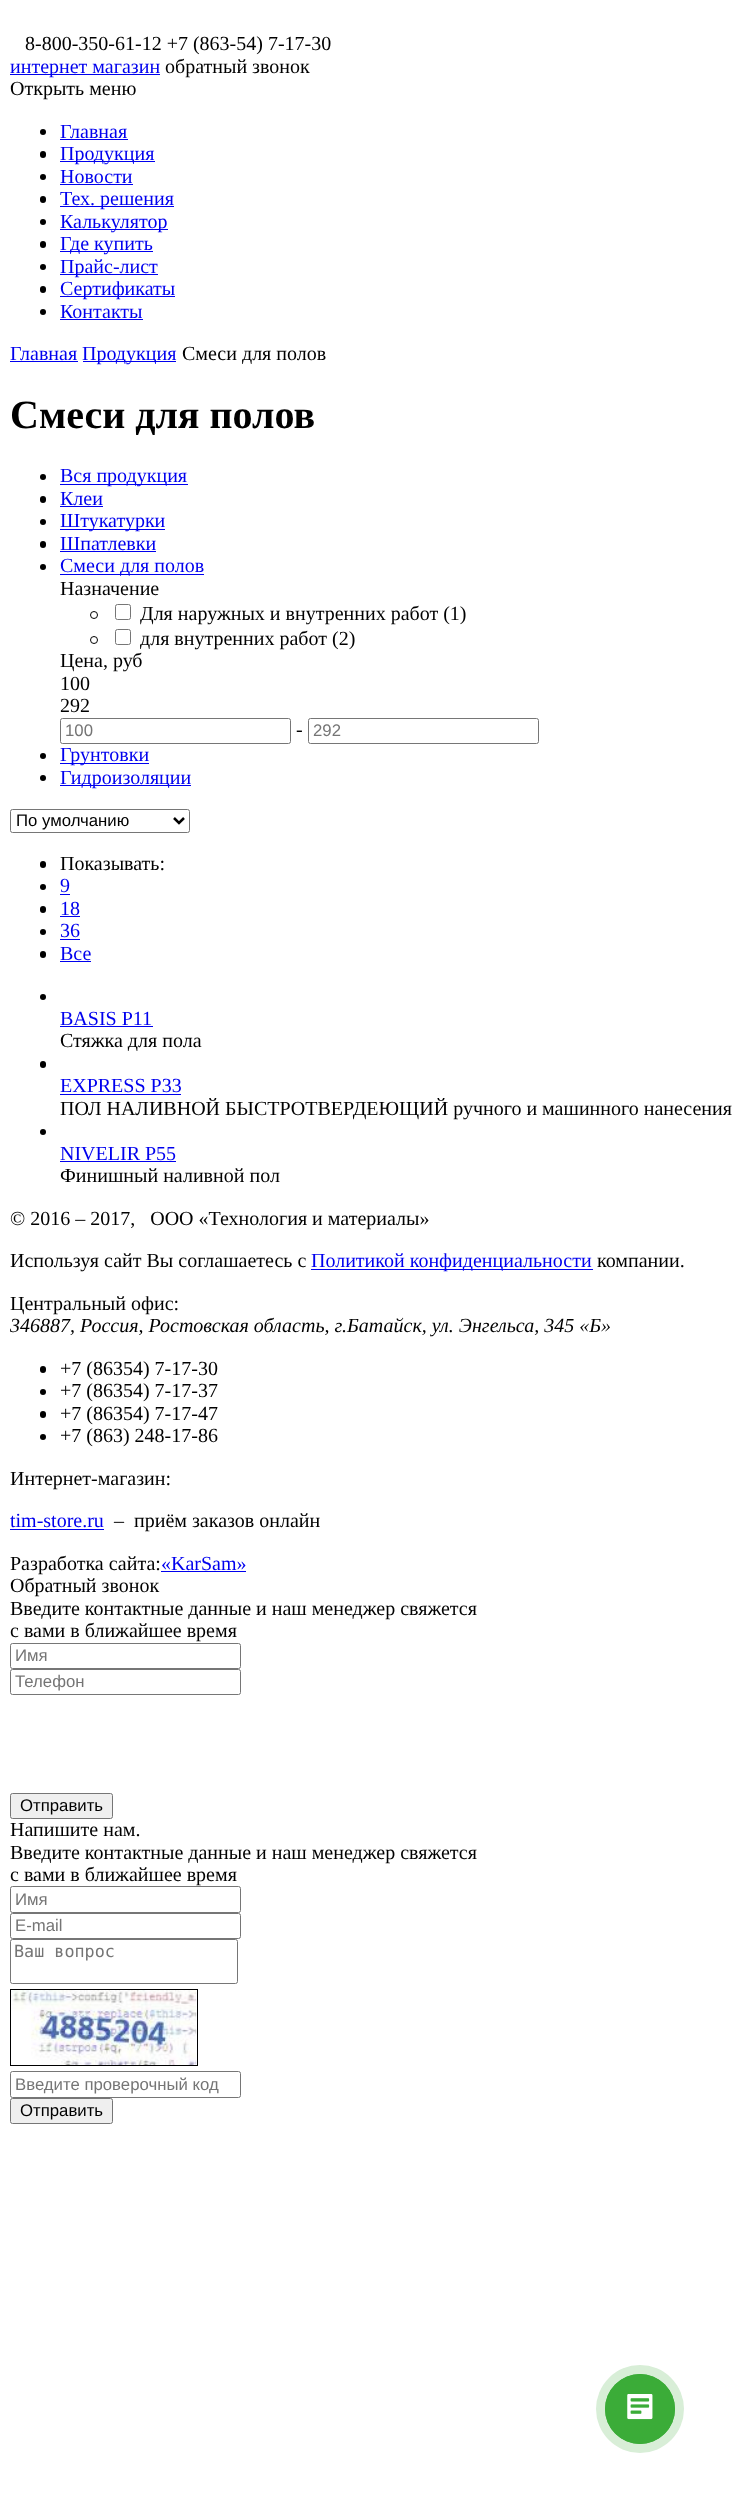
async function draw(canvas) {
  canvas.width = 743
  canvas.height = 2512
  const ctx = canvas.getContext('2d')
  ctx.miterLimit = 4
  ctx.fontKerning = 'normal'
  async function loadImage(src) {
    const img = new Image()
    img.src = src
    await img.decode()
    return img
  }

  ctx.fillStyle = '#fff'
  ctx.fillRect(0, 0, 743, 2512)
  ctx.font = '20px Liberation Serif'
  ctx.fillStyle = '#000'
  ctx.fillText('8-800-350-61-12 +7 (863-54) 7-17-30', 25, 50)
  ctx.fillStyle = '#00e'
  ctx.fillRect(10, 74, 150, 1)
  ctx.fillText('интернет магазин', 10, 73)
  ctx.fillStyle = '#000'
  ctx.fillText('обратный звонок', 165, 73)
  ctx.fillText('Открыть меню', 10, 95)
  ctx.beginPath()
  ctx.arc(43, 132, 3, 0, 2 * Math.PI)
  ctx.fill()
  ctx.fillStyle = '#00e'
  ctx.fillText('Главная', 60, 138)
  ctx.fillRect(60, 139, 68, 1)
  ctx.fillStyle = '#000'
  ctx.beginPath()
  ctx.roundRect(40, 151, 6, 7, 3)
  ctx.fill()
  ctx.fillStyle = '#00e'
  ctx.fillRect(60, 161, 95, 1)
  ctx.fillText('Продукция', 60, 160)
  ctx.fillStyle = '#000'
  ctx.beginPath()
  ctx.arc(43, 177, 3, 0, 2 * Math.PI)
  ctx.fill()
  ctx.fillStyle = '#00e'
  ctx.fillText('Новости', 60, 183)
  ctx.fillRect(60, 184, 73, 1)
  ctx.fillStyle = '#000'
  ctx.beginPath()
  ctx.roundRect(40, 196, 6, 7, 3)
  ctx.fill()
  ctx.fillStyle = '#00e'
  ctx.fillRect(60, 206, 114, 1)
  ctx.fillText('Тех. решения', 60, 205)
  ctx.fillStyle = '#000'
  ctx.beginPath()
  ctx.arc(43, 222, 3, 0, 2 * Math.PI)
  ctx.fill()
  ctx.fillStyle = '#00e'
  ctx.fillRect(60, 229, 108, 1)
  ctx.fillText('Калькулятор', 60, 228)
  ctx.fillStyle = '#000'
  ctx.beginPath()
  ctx.roundRect(40, 241, 6, 7, 3)
  ctx.fill()
  ctx.fillStyle = '#00e'
  ctx.fillRect(60, 251, 93, 1)
  ctx.fillText('Где купить', 60, 250)
  ctx.fillStyle = '#000'
  ctx.beginPath()
  ctx.arc(43, 267, 3, 0, 2 * Math.PI)
  ctx.fill()
  ctx.fillStyle = '#00e'
  ctx.fillRect(60, 274, 98, 1)
  ctx.fillText('Прайс-лист', 60, 273)
  ctx.fillStyle = '#000'
  ctx.beginPath()
  ctx.roundRect(40, 286, 6, 7, 3)
  ctx.fill()
  ctx.fillStyle = '#00e'
  ctx.fillRect(60, 296, 115, 1)
  ctx.fillText('Сертификаты', 60, 295)
  ctx.fillStyle = '#000'
  ctx.beginPath()
  ctx.arc(43, 312, 3, 0, 2 * Math.PI)
  ctx.fill()
  ctx.fillStyle = '#00e'
  ctx.fillText('Контакты', 60, 318)
  ctx.fillRect(60, 319, 83, 1)
  ctx.fillText('Главная', 10, 360)
  ctx.fillRect(10, 361, 68, 1)
  ctx.fillRect(83, 361, 93, 1)
  ctx.fillText('Продукция', 82, 360)
  ctx.fillStyle = '#000'
  ctx.fillText('Смеси для полов', 182, 360)
  ctx.font = 'bold 40px Liberation Serif'
  ctx.fillText('Смеси для полов', 10, 428)
  ctx.beginPath()
  ctx.arc(43, 477, 3, 0, 2 * Math.PI)
  ctx.fill()
  ctx.fillStyle = '#00e'
  ctx.fillRect(60, 484, 128, 1)
  ctx.font = '20px Liberation Serif'
  ctx.fillText('Вся продукция', 60, 482)
  ctx.fillStyle = '#000'
  ctx.beginPath()
  ctx.roundRect(40, 496, 6, 7, 3)
  ctx.fill()
  ctx.fillStyle = '#00e'
  ctx.fillText('Клеи', 60, 505)
  ctx.fillRect(60, 506, 43, 1)
  ctx.fillStyle = '#000'
  ctx.beginPath()
  ctx.arc(43, 522, 3, 0, 2 * Math.PI)
  ctx.fill()
  ctx.fillStyle = '#00e'
  ctx.fillRect(60, 529, 105, 1)
  ctx.fillText('Штукатурки', 60, 527)
  ctx.fillStyle = '#000'
  ctx.beginPath()
  ctx.roundRect(40, 541, 6, 7, 3)
  ctx.fill()
  ctx.fillStyle = '#00e'
  ctx.fillText('Шпатлевки', 60, 550)
  ctx.fillRect(60, 551, 96, 1)
  ctx.fillStyle = '#000'
  ctx.beginPath()
  ctx.arc(43, 567, 3, 0, 2 * Math.PI)
  ctx.fill()
  ctx.fillStyle = '#00e'
  ctx.fillRect(60, 574, 144, 1)
  ctx.fillText('Смеси для полов', 60, 572)
  ctx.fillStyle = '#000'
  ctx.fillText('Назначение', 60, 595)
  ctx.beginPath()
  ctx.arc(94, 615, 3.5, 0, 2 * Math.PI)
  ctx.strokeStyle = '#000'
  ctx.stroke()
  ctx.beginPath()
  ctx.roundRect(115.5, 604.5, 15, 15, 2)
  ctx.strokeStyle = '#767676'
  ctx.stroke()
  ctx.fillText('Для наружных и внутренних работ (1)', 140, 620)
  ctx.beginPath()
  ctx.arc(94, 640, 3.5, 0, 2 * Math.PI)
  ctx.strokeStyle = '#000'
  ctx.stroke()
  ctx.beginPath()
  ctx.roundRect(115.5, 629.5, 15, 15, 2)
  ctx.strokeStyle = '#767676'
  ctx.stroke()
  ctx.fillText('для внутренних работ (2)', 140, 645)
  ctx.fillText('Цена, руб', 60, 667)
  ctx.fillText('100', 60, 690)
  ctx.fillText('292', 60, 712)
  ctx.beginPath()
  ctx.roundRect(60.5, 718.5, 230, 25, 2)
  ctx.stroke()
  ctx.font = '16.75px Liberation Sans'
  ctx.fillStyle = '#757575'
  ctx.fillText('100', 65, 736)
  ctx.font = 'italic 20px Liberation Serif'
  ctx.fillStyle = '#000'
  ctx.fillText('-', 296, 736)
  ctx.beginPath()
  ctx.roundRect(308.5, 718.5, 230, 25, 2)
  ctx.stroke()
  ctx.font = '16.75px Liberation Sans'
  ctx.fillStyle = '#757575'
  ctx.fillText('292', 313, 736)
  ctx.fillStyle = '#000'
  ctx.beginPath()
  ctx.arc(43, 756, 3, 0, 2 * Math.PI)
  ctx.fill()
  ctx.fillStyle = '#00e'
  ctx.fillRect(60, 763, 89, 1)
  ctx.font = '20px Liberation Serif'
  ctx.fillText('Грунтовки', 60, 761)
  ctx.fillStyle = '#000'
  ctx.beginPath()
  ctx.arc(43, 778, 3, 0, 2 * Math.PI)
  ctx.fill()
  ctx.fillStyle = '#00e'
  ctx.fillRect(60, 785, 131, 1)
  ctx.fillText('Гидроизоляции', 60, 784)
  ctx.beginPath()
  ctx.roundRect(10.5, 809.5, 179, 23, 2)
  ctx.stroke()
  ctx.beginPath()
  ctx.moveTo(174, 818)
  ctx.lineTo(179, 823)
  ctx.lineTo(184, 818)
  ctx.strokeStyle = '#000'
  ctx.lineWidth = 2.5
  ctx.stroke()
  ctx.font = '16.75px Liberation Sans'
  ctx.fillStyle = '#000'
  ctx.fillText('По умолчанию', 16, 826)
  ctx.beginPath()
  ctx.roundRect(40, 861, 6, 7, 3)
  ctx.fill()
  ctx.font = '20px Liberation Serif'
  ctx.fillText('Показывать:', 60, 870)
  ctx.beginPath()
  ctx.arc(43, 887, 3, 0, 2 * Math.PI)
  ctx.fill()
  ctx.fillStyle = '#00e'
  ctx.fillText('9', 60, 892)
  ctx.fillRect(60, 894, 10, 1)
  ctx.fillStyle = '#000'
  ctx.beginPath()
  ctx.roundRect(40, 906, 6, 7, 3)
  ctx.fill()
  ctx.fillStyle = '#00e'
  ctx.fillText('18', 60, 915)
  ctx.fillRect(60, 916, 20, 1)
  ctx.fillStyle = '#000'
  ctx.beginPath()
  ctx.arc(43, 932, 3, 0, 2 * Math.PI)
  ctx.fill()
  ctx.fillStyle = '#00e'
  ctx.fillText('36', 60, 937)
  ctx.fillRect(60, 939, 20, 1)
  ctx.fillStyle = '#000'
  ctx.beginPath()
  ctx.roundRect(40, 951, 6, 7, 3)
  ctx.fill()
  ctx.fillStyle = '#00e'
  ctx.fillText('Все', 60, 960)
  ctx.fillRect(60, 961, 31, 1)
  ctx.fillStyle = '#000'
  ctx.beginPath()
  ctx.arc(43, 997, 3, 0, 2 * Math.PI)
  ctx.fill()
  ctx.fillStyle = '#00e'
  ctx.fillText('BASIS P11', 60, 1025)
  ctx.fillRect(60, 1026, 93, 1)
  ctx.fillStyle = '#000'
  ctx.fillText('Стяжка для пола', 60, 1047)
  ctx.beginPath()
  ctx.roundRect(40, 1061, 6, 7, 3)
  ctx.fill()
  ctx.fillStyle = '#00e'
  ctx.fillText('EXPRESS P33', 60, 1092)
  ctx.fillRect(60, 1094, 121, 1)
  ctx.fillStyle = '#000'
  ctx.fillText('ПОЛ НАЛИВНОЙ БЫСТРОТВЕРДЕЮЩИЙ ручного и машинного нанесения', 60, 1115)
  ctx.beginPath()
  ctx.arc(43, 1132, 3, 0, 2 * Math.PI)
  ctx.fill()
  ctx.fillStyle = '#00e'
  ctx.fillText('NIVELIR P55', 60, 1160)
  ctx.fillRect(60, 1161, 116, 1)
  ctx.fillStyle = '#000'
  ctx.fillText('Финишный наливной пол', 60, 1182)
  ctx.fillText('© 2016 – 2017,   ООО «Технология и материалы»', 10, 1225)
  ctx.fillText('Используя сайт Вы соглашаетесь с', 10, 1267)
  ctx.fillStyle = '#00e'
  ctx.fillRect(311, 1269, 282, 1)
  ctx.fillText('Политикой конфиденциальности', 311, 1267)
  ctx.fillStyle = '#000'
  ctx.fillText('компании.', 597, 1267)
  ctx.fillText('Центральный офис:', 10, 1310)
  ctx.font = 'italic 20px Liberation Serif'
  ctx.fillText('346887, Россия, Ростовская область, г.Батайск, ул. Энгельса, 345 «Б»', 10, 1332)
  ctx.beginPath()
  ctx.roundRect(40, 1366, 6, 7, 3)
  ctx.fill()
  ctx.font = '20px Liberation Serif'
  ctx.fillText('+7 (86354) 7-17-30', 60, 1375)
  ctx.beginPath()
  ctx.arc(43, 1392, 3, 0, 2 * Math.PI)
  ctx.fill()
  ctx.fillText('+7 (86354) 7-17-37', 60, 1397)
  ctx.beginPath()
  ctx.roundRect(40, 1411, 6, 7, 3)
  ctx.fill()
  ctx.fillText('+7 (86354) 7-17-47', 60, 1420)
  ctx.beginPath()
  ctx.arc(43, 1437, 3, 0, 2 * Math.PI)
  ctx.fill()
  ctx.fillText('+7 (863) 248-17-86', 60, 1442)
  ctx.fillText('Интернет-магазин:', 10, 1485)
  ctx.fillStyle = '#00e'
  ctx.fillText('tim-store.ru', 10, 1527)
  ctx.fillRect(10, 1529, 94, 1)
  ctx.fillStyle = '#000'
  ctx.fillText('–  приём заказов онлайн', 114, 1527)
  ctx.fillText('Разработка сайта:', 10, 1570)
  ctx.fillStyle = '#00e'
  ctx.fillText('«KarSam»', 161, 1570)
  ctx.fillRect(161, 1571, 85, 1)
  ctx.fillStyle = '#000'
  ctx.fillText('Обратный звонок', 10, 1592)
  ctx.fillText('Введите контактные данные и наш менеджер свяжется', 10, 1615)
  ctx.fillText('с вами в ближайшее время', 10, 1637)
  ctx.beginPath()
  ctx.roundRect(10.5, 1643.5, 230, 25, 2)
  ctx.strokeStyle = '#767676'
  ctx.lineWidth = 1
  ctx.stroke()
  ctx.font = '16.75px Liberation Sans'
  ctx.fillStyle = '#757575'
  ctx.fillText('Имя', 15, 1661)
  ctx.beginPath()
  ctx.roundRect(10.5, 1669.5, 230, 25, 2)
  ctx.stroke()
  ctx.fillText('Телефон', 15, 1687)
  ctx.fillStyle = '#efefef'
  ctx.beginPath()
  ctx.roundRect(10.5, 1793.5, 102, 25, 2)
  ctx.fill()
  ctx.stroke()
  ctx.fillStyle = '#000'
  ctx.fillText('Отправить', 20, 1811)
  ctx.font = '20px Liberation Serif'
  ctx.fillText('Напишите нам.', 10, 1836)
  ctx.fillText('Введите контактные данные и наш менеджер свяжется', 10, 1859)
  ctx.fillText('с вами в ближайшее время', 10, 1881)
  ctx.beginPath()
  ctx.roundRect(10.5, 1886.5, 230, 26, 2)
  ctx.stroke()
  ctx.font = '16.75px Liberation Sans'
  ctx.fillStyle = '#757575'
  ctx.fillText('Имя', 15, 1905)
  ctx.beginPath()
  ctx.roundRect(10.5, 1913.5, 230, 25, 2)
  ctx.stroke()
  ctx.fillText('E-mail', 15, 1931)
  ctx.beginPath()
  ctx.roundRect(10.5, 1939.5, 227, 44, 2)
  ctx.stroke()
  ctx.font = '16.75px DejaVu Sans Mono'
  ctx.fillText('Ваш вопрос', 14, 1957)
  ctx.strokeStyle = '#000'
  ctx.strokeRect(10.5, 1989.5, 187, 76)
  ctx.drawImage(await loadImage('image0.png'), 11, 1990, 186, 75)
  ctx.beginPath()
  ctx.roundRect(10.5, 2071.5, 230, 26, 2)
  ctx.strokeStyle = '#767676'
  ctx.stroke()
  ctx.font = '16.75px Liberation Sans'
  ctx.fillText('Введите проверочный код', 15, 2090)
  ctx.fillStyle = '#efefef'
  ctx.beginPath()
  ctx.roundRect(10.5, 2098.5, 102, 25, 2)
  ctx.fill()
  ctx.stroke()
  ctx.fillStyle = '#000'
  ctx.fillText('Отправить', 20, 2116)
  ctx.fillStyle = '#d8eed7'
  ctx.beginPath()
  ctx.arc(640, 2409, 44, 0, 2 * Math.PI)
  ctx.fill()
  ctx.beginPath()
  ctx.arc(640, 2409, 34.5, 0, 2 * Math.PI)
  ctx.strokeStyle = '#3bac38'
  ctx.stroke()
  ctx.fillStyle = '#3bac38'
  ctx.beginPath()
  ctx.arc(640, 2409, 35, 0, 2 * Math.PI)
  ctx.fill()
  ctx.drawImage(await loadImage('image1.png'), 627, 2394, 26, 26)
}

draw(document.querySelector('canvas'))
